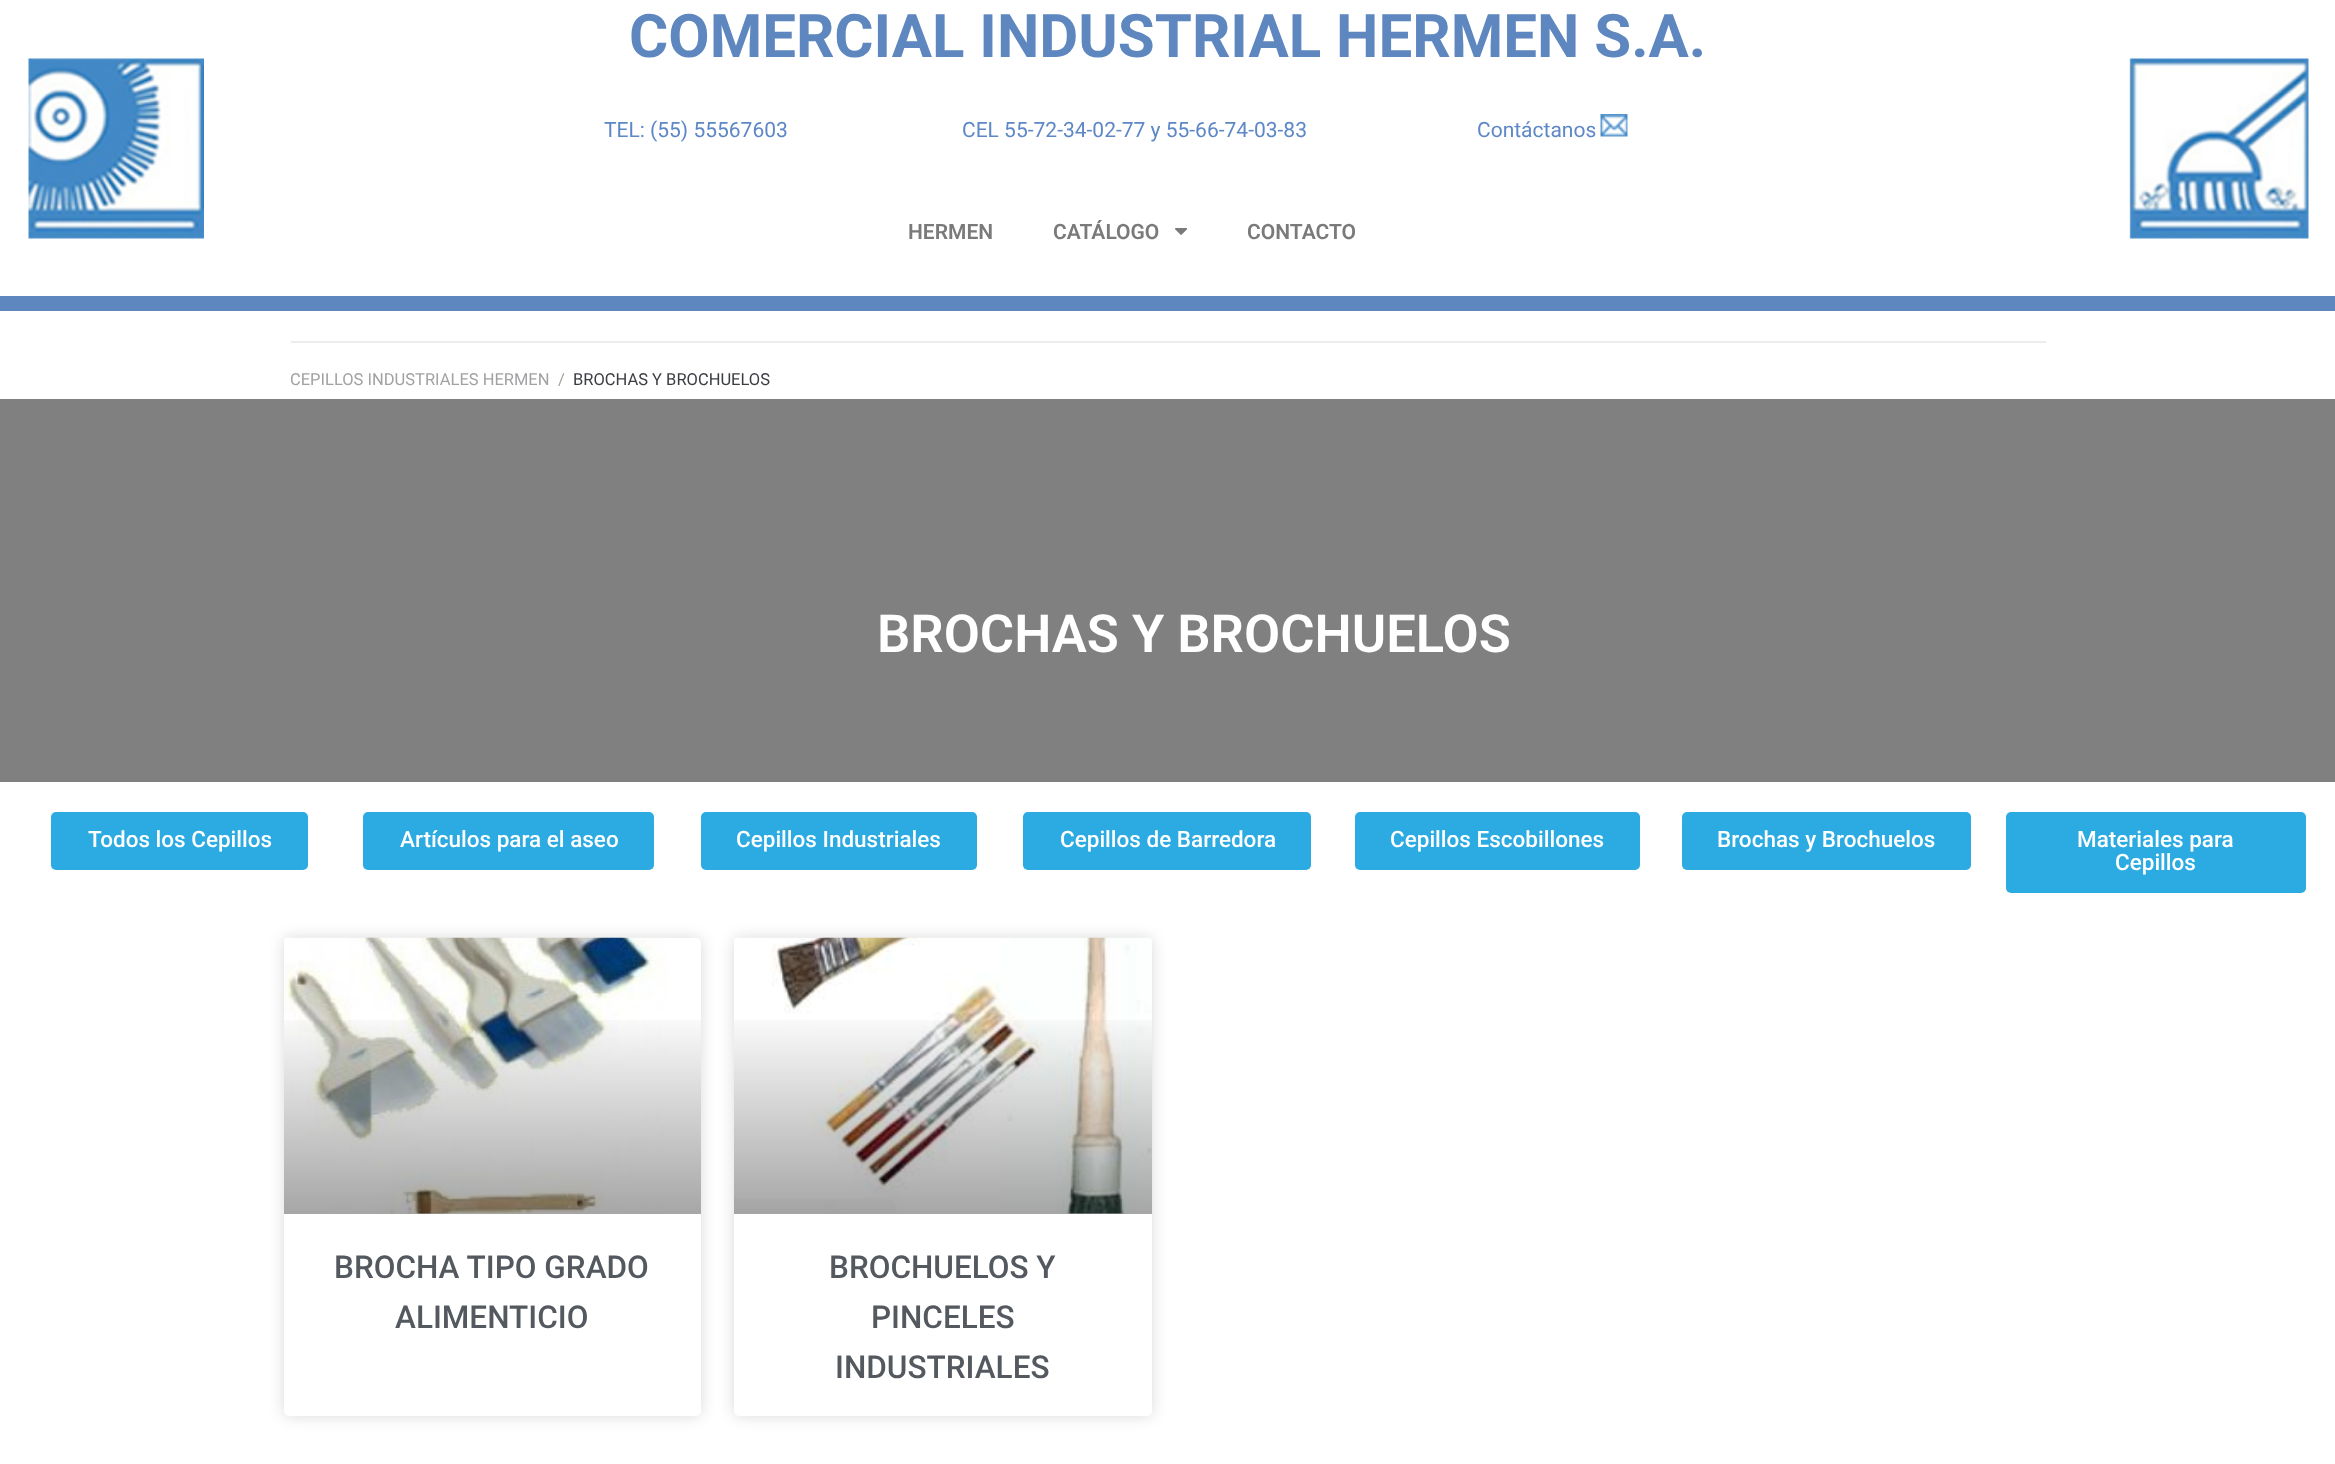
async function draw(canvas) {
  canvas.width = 2335
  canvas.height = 1464
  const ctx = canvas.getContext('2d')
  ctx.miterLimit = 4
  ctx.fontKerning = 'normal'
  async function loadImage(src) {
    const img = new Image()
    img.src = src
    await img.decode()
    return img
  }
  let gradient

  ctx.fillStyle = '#fff'
  ctx.fillRect(0, 0, 2335, 1464)
  ctx.drawImage(await loadImage('image0.png'), 28, 58, 176, 181)
  ctx.font = 'bold 60px Roboto'
  ctx.fillStyle = '#5e87c0'
  ctx.fillText('COMERCIAL INDUSTRIAL HERMEN S.A.', 629, 57)
  ctx.font = '21px Roboto'
  ctx.fillStyle = '#5d87c6'
  ctx.fillText('TEL: (55) 55567603', 604, 137)
  ctx.fillText('CEL 55-72-34-02-77 y 55-66-74-03-83', 962, 137)
  ctx.font = '600 21px Roboto'
  ctx.fillStyle = '#7a7a7a'
  ctx.fillText('HERMEN', 908, 239)
  ctx.fillText('CATÁLOGO', 1053, 239)
  ctx.drawImage(await loadImage('image1.png'), 1175, 228, 13, 7)
  ctx.fillText('CONTACTO', 1247, 239)
  ctx.font = '21px Roboto'
  ctx.fillStyle = '#5d87c6'
  ctx.fillText('Contáctanos', 1477, 137)
  ctx.drawImage(await loadImage('image2.png'), 1600, 114, 28, 23)
  ctx.drawImage(await loadImage('image3.png'), 2129, 58, 180, 181)
  ctx.fillStyle = '#5e87c0'
  ctx.fillRect(0, 296, 2335, 15)
  ctx.fillStyle = '#ebeced'
  ctx.fillRect(291, 341, 1755, 2)
  ctx.font = '16.5px Roboto'
  ctx.fillStyle = '#a1a2a4'
  ctx.fillText('CEPILLOS INDUSTRIALES HERMEN', 290, 385)
  ctx.fillText('/', 558, 385)
  ctx.fillStyle = '#3b3d42'
  ctx.fillText('BROCHAS Y BROCHUELOS', 573, 385)
  ctx.fillStyle = '#808080'
  ctx.fillRect(0, 399, 2335, 383)
  ctx.font = '600 52.5px Roboto'
  ctx.fillStyle = '#fff'
  ctx.fillText('BROCHAS Y BROCHUELOS', 877, 652)
  ctx.fillStyle = '#2babe2'
  ctx.beginPath()
  ctx.roundRect(51, 812, 257, 58, 5)
  ctx.fill()
  ctx.font = '500 22.5px Roboto'
  ctx.fillStyle = '#fff'
  ctx.fillText('Todos los Cepillos', 88, 847)
  ctx.fillStyle = '#2babe2'
  ctx.beginPath()
  ctx.roundRect(363, 812, 291, 58, 5)
  ctx.fill()
  ctx.fillStyle = '#fff'
  ctx.fillText('Artículos para el aseo', 400, 847)
  ctx.fillStyle = '#2babe2'
  ctx.beginPath()
  ctx.roundRect(701, 812, 276, 58, 5)
  ctx.fill()
  ctx.fillStyle = '#fff'
  ctx.fillText('Cepillos Industriales', 736, 847)
  ctx.fillStyle = '#2babe2'
  ctx.beginPath()
  ctx.roundRect(1023, 812, 288, 58, 5)
  ctx.fill()
  ctx.fillStyle = '#fff'
  ctx.fillText('Cepillos de Barredora', 1060, 847)
  ctx.fillStyle = '#2babe2'
  ctx.beginPath()
  ctx.roundRect(1355, 812, 285, 58, 5)
  ctx.fill()
  ctx.fillStyle = '#fff'
  ctx.fillText('Cepillos Escobillones', 1390, 847)
  ctx.fillStyle = '#2babe2'
  ctx.beginPath()
  ctx.roundRect(1682, 812, 289, 58, 5)
  ctx.fill()
  ctx.fillStyle = '#fff'
  ctx.fillText('Brochas y Brochuelos', 1717, 847)
  ctx.fillStyle = '#2babe2'
  ctx.beginPath()
  ctx.roundRect(2006, 812, 300, 81, 5)
  ctx.fill()
  ctx.fillStyle = '#fff'
  ctx.fillText('Materiales para', 2077, 847)
  ctx.fillText('Cepillos', 2115, 870)
  ctx.fillStyle = '#00000026'
  ctx.filter = 'blur(7.5px)'
  ctx.beginPath()
  ctx.roundRect(284, 938, 417, 478, 5)
  ctx.fill()
  ctx.filter = 'none'
  ctx.fillStyle = '#fff'
  ctx.beginPath()
  ctx.roundRect(284, 938, 417, 478, 5)
  ctx.fill()
  ctx.drawImage(await loadImage('image4.png'), 284, 937, 384, 277)
  gradient = ctx.createLinearGradient(492, 1214, 492, 938)
  gradient.addColorStop(0, '#00000059')
  gradient.addColorStop(0.75, '#00000000')
  ctx.fillStyle = gradient
  ctx.fillRect(284, 1020, 417, 194)
  ctx.font = '500 31.5px Roboto'
  ctx.fillStyle = '#54595f'
  ctx.fillText('BROCHA TIPO GRADO', 334, 1278)
  ctx.fillText('ALIMENTICIO', 395, 1328)
  ctx.fillStyle = '#00000026'
  ctx.filter = 'blur(7.5px)'
  ctx.beginPath()
  ctx.roundRect(734, 938, 418, 478, 5)
  ctx.fill()
  ctx.filter = 'none'
  ctx.fillStyle = '#fff'
  ctx.beginPath()
  ctx.roundRect(734, 938, 418, 478, 5)
  ctx.fill()
  ctx.drawImage(await loadImage('image5.png'), 734, 937, 418, 277)
  gradient = ctx.createLinearGradient(943, 1214, 943, 938)
  gradient.addColorStop(0, '#00000059')
  gradient.addColorStop(0.75, '#00000000')
  ctx.fillStyle = gradient
  ctx.fillRect(734, 1020, 418, 194)
  ctx.fillStyle = '#54595f'
  ctx.fillText('BROCHUELOS Y', 829, 1278)
  ctx.fillText('PINCELES', 871, 1328)
  ctx.fillText('INDUSTRIALES', 835, 1378)
}

draw(document.querySelector('canvas'))
